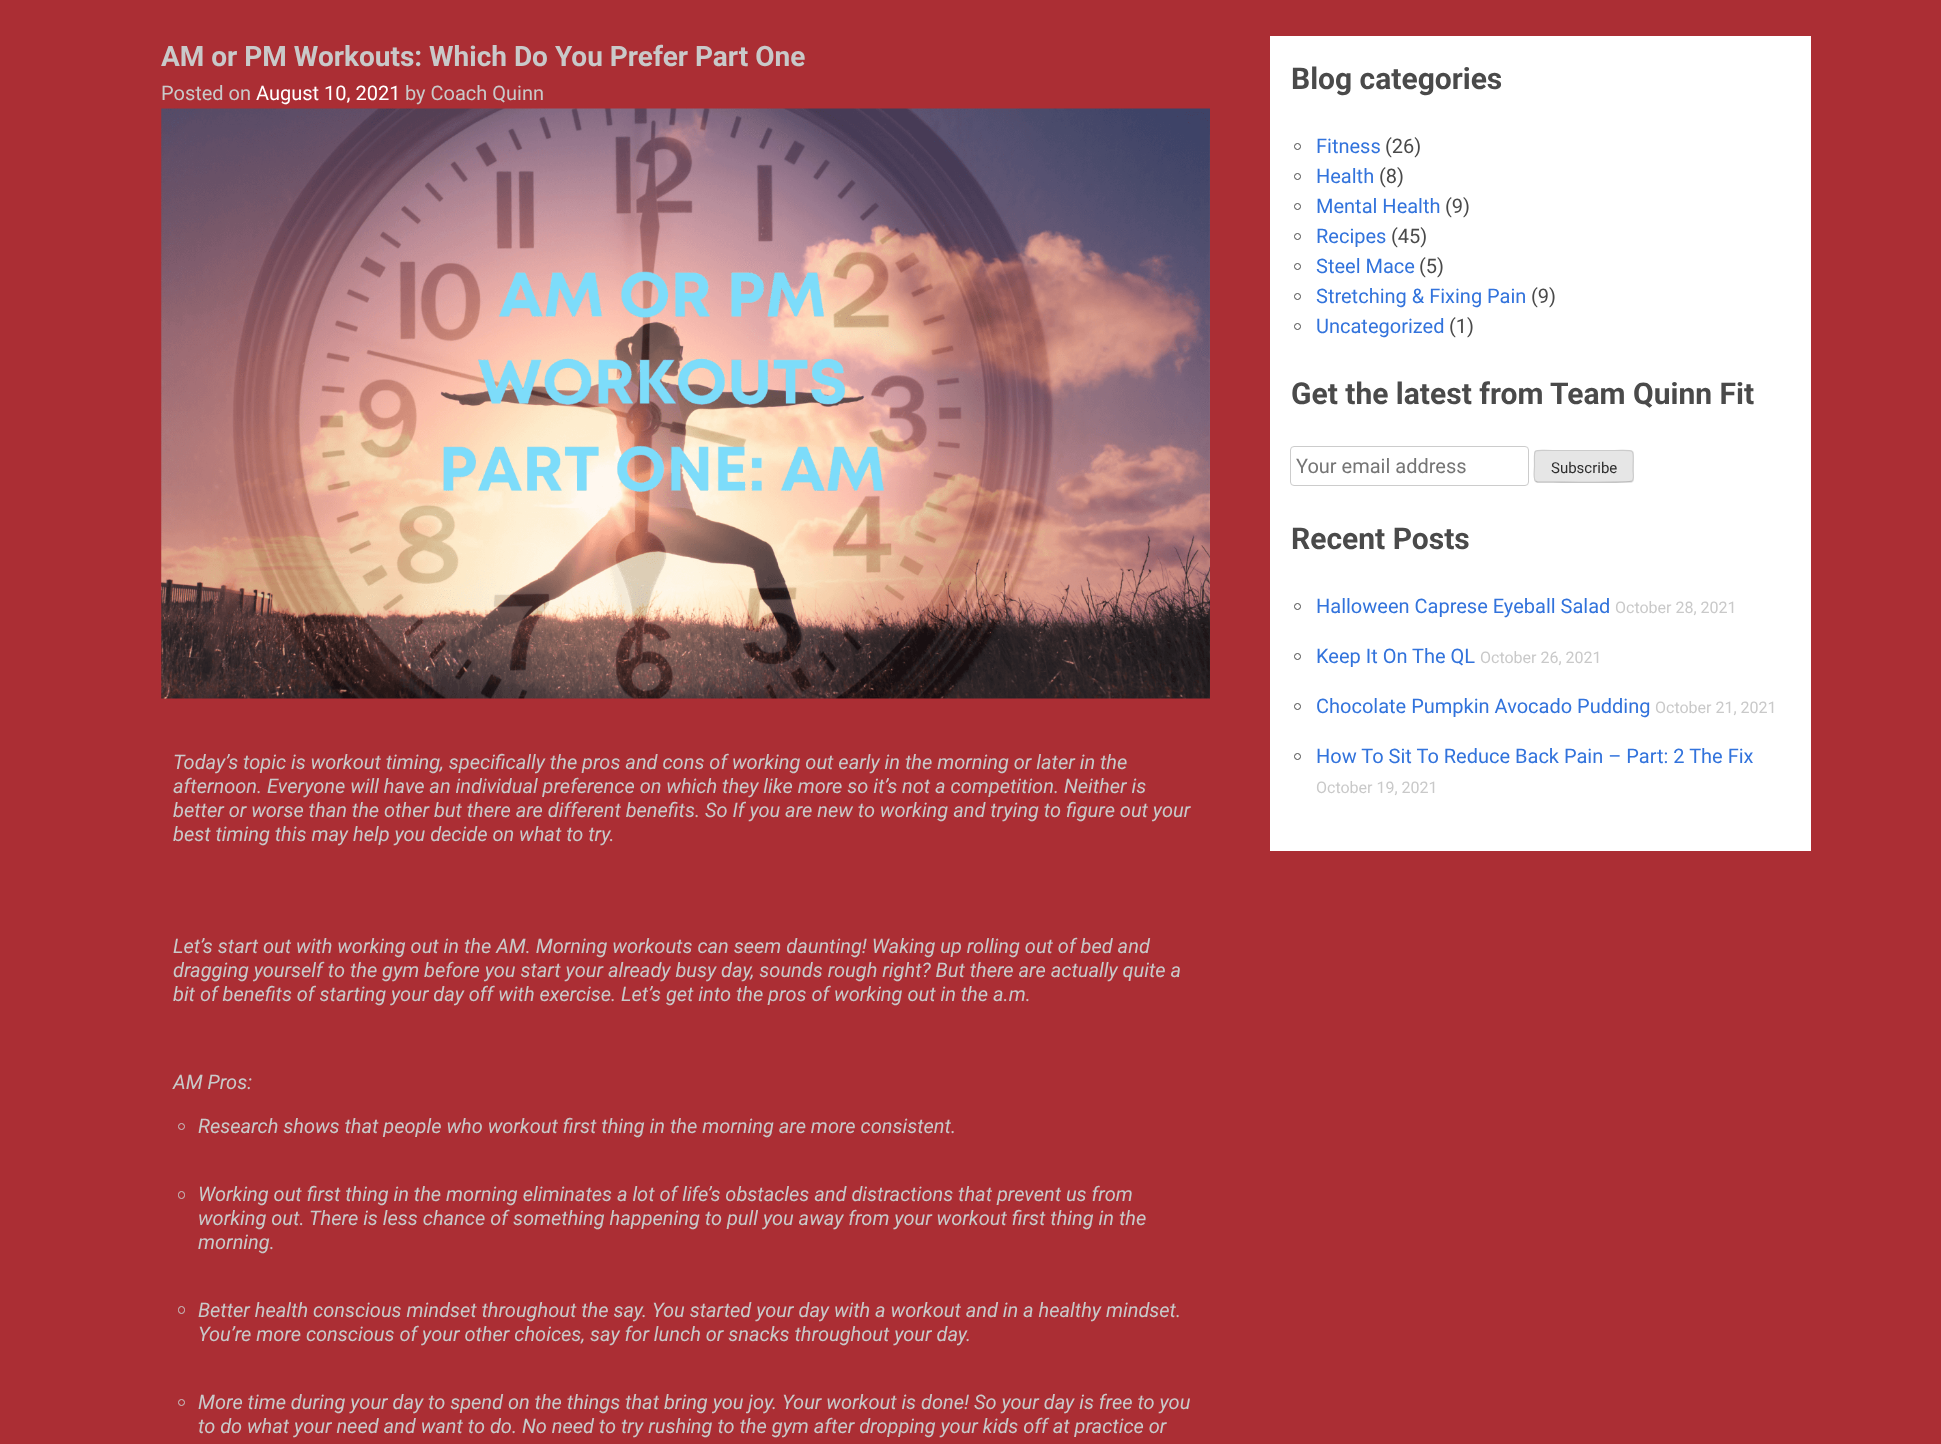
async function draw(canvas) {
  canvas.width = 1941
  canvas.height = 1444
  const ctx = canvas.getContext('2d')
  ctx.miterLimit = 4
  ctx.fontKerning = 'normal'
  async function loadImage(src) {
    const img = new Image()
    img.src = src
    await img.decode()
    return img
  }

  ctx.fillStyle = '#ab2e34'
  ctx.fillRect(0, 0, 1941, 1444)
  ctx.font = 'bold 28px Roboto'
  ctx.fillStyle = '#c9c9c9'
  ctx.fillText('AM or PM Workouts: Which Do You Prefer Part One', 161, 66)
  ctx.font = '20px Roboto'
  ctx.fillText('Posted on', 161, 100)
  ctx.fillStyle = '#fff'
  ctx.fillText('August 10, 2021', 256, 100)
  ctx.fillStyle = '#c9c9c9'
  ctx.fillText('by Coach Quinn', 405, 100)
  ctx.drawImage(await loadImage('image0.png'), 161, 108, 1049, 591)
  ctx.font = 'italic 20px Roboto'
  ctx.fillText('Today’s topic is workout timing, specifically the pros and cons of working out early in the morning or later in the', 173, 769)
  ctx.fillText('afternoon. Everyone will have an individual preference on which they like more so it’s not a competition. Neither is', 173, 793)
  ctx.fillText('better or worse than the other but there are different benefits. So If you are new to working and trying to figure out your', 173, 817)
  ctx.fillText('best timing this may help you decide on what to try.', 173, 841)
  ctx.fillText('Let’s start out with working out in the AM. Morning workouts can seem daunting! Waking up rolling out of bed and', 173, 953)
  ctx.fillText('dragging yourself to the gym before you start your already busy day, sounds rough right? But there are actually quite a', 173, 977)
  ctx.fillText('bit of benefits of starting your day off with exercise. Let’s get into the pros of working out in the a.m.', 173, 1001)
  ctx.fillText('AM Pros:', 173, 1089)
  ctx.beginPath()
  ctx.arc(181.5, 1126.5, 3, 0, 2 * Math.PI)
  ctx.strokeStyle = '#c9c9c9'
  ctx.stroke()
  ctx.fillText('Research shows that people who workout first thing in the morning are more consistent.', 198, 1133)
  ctx.beginPath()
  ctx.roundRect(178.5, 1191.5, 6, 7, 3)
  ctx.stroke()
  ctx.fillText('Working out first thing in the morning eliminates a lot of life’s obstacles and distractions that prevent us from', 198, 1201)
  ctx.fillText('working out. There is less chance of something happening to pull you away from your workout first thing in the', 198, 1225)
  ctx.fillText('morning.', 198, 1249)
  ctx.beginPath()
  ctx.roundRect(178.5, 1306.5, 6, 7, 3)
  ctx.stroke()
  ctx.fillText('Better health conscious mindset throughout the say. You started your day with a workout and in a healthy mindset.', 198, 1317)
  ctx.fillText('You’re more conscious of your other choices, say for lunch or snacks throughout your day.', 198, 1341)
  ctx.beginPath()
  ctx.arc(181.5, 1402.5, 3, 0, 2 * Math.PI)
  ctx.stroke()
  ctx.fillText('More time during your day to spend on the things that bring you joy. Your workout is done! So your day is free to you', 198, 1409)
  ctx.fillText('to do what your need and want to do. No need to try rushing to the gym after dropping your kids off at practice or', 198, 1433)
  ctx.fillStyle = '#fff'
  ctx.fillRect(1270, 36, 541, 815)
  ctx.font = 'bold 30px Roboto'
  ctx.fillStyle = '#4a4a4a'
  ctx.fillText('Blog categories', 1291, 89)
  ctx.beginPath()
  ctx.arc(1297.5, 146.5, 3, 0, 2 * Math.PI)
  ctx.strokeStyle = '#4a4a4a'
  ctx.stroke()
  ctx.font = '20px Roboto'
  ctx.fillStyle = '#3273dc'
  ctx.fillText('Fitness', 1316, 153)
  ctx.fillStyle = '#4a4a4a'
  ctx.fillText('(26)', 1385, 153)
  ctx.beginPath()
  ctx.arc(1297.5, 176.5, 3, 0, 2 * Math.PI)
  ctx.stroke()
  ctx.fillStyle = '#3273dc'
  ctx.fillText('Health', 1316, 183)
  ctx.fillStyle = '#4a4a4a'
  ctx.fillText('(8)', 1379, 183)
  ctx.beginPath()
  ctx.arc(1297.5, 206.5, 3, 0, 2 * Math.PI)
  ctx.stroke()
  ctx.fillStyle = '#3273dc'
  ctx.fillText('Mental Health', 1316, 213)
  ctx.fillStyle = '#4a4a4a'
  ctx.fillText('(9)', 1445, 213)
  ctx.beginPath()
  ctx.arc(1297.5, 236.5, 3, 0, 2 * Math.PI)
  ctx.stroke()
  ctx.fillStyle = '#3273dc'
  ctx.fillText('Recipes', 1316, 243)
  ctx.fillStyle = '#4a4a4a'
  ctx.fillText('(45)', 1391, 243)
  ctx.beginPath()
  ctx.arc(1297.5, 266.5, 3, 0, 2 * Math.PI)
  ctx.stroke()
  ctx.fillStyle = '#3273dc'
  ctx.fillText('Steel Mace', 1316, 273)
  ctx.fillStyle = '#4a4a4a'
  ctx.fillText('(5)', 1419, 273)
  ctx.beginPath()
  ctx.arc(1297.5, 296.5, 3, 0, 2 * Math.PI)
  ctx.stroke()
  ctx.fillStyle = '#3273dc'
  ctx.fillText('Stretching & Fixing Pain', 1316, 303)
  ctx.fillStyle = '#4a4a4a'
  ctx.fillText('(9)', 1531, 303)
  ctx.beginPath()
  ctx.arc(1297.5, 326.5, 3, 0, 2 * Math.PI)
  ctx.stroke()
  ctx.fillStyle = '#3273dc'
  ctx.fillText('Uncategorized', 1316, 333)
  ctx.fillStyle = '#4a4a4a'
  ctx.fillText('(1)', 1449, 333)
  ctx.font = 'bold 30px Roboto'
  ctx.fillText('Get the latest from Team Quinn Fit', 1291, 404)
  ctx.beginPath()
  ctx.roundRect(1290.5, 446.5, 238, 39, 3.5)
  ctx.strokeStyle = '#ccc'
  ctx.stroke()
  ctx.font = '20px Roboto'
  ctx.fillStyle = '#757575'
  ctx.fillText('Your email address', 1296, 473)
  ctx.fillStyle = '#e6e6e6'
  ctx.beginPath()
  ctx.roundRect(1534, 450, 100, 33, 4)
  ctx.fill()
  ctx.beginPath()
  ctx.moveTo(1632, 481)
  ctx.bezierCurveTo(1630, 483, 1561.5, 482, 1553, 482)
  ctx.lineTo(1537.5, 482)
  ctx.lineTo(1535.5, 481)
  ctx.strokeStyle = '#bbb'
  ctx.lineWidth = 1.2
  ctx.stroke()
  ctx.beginPath()
  ctx.moveTo(1535.5, 481)
  ctx.bezierCurveTo(1533, 479, 1534.5, 469, 1534.5, 466)
  ctx.bezierCurveTo(1534.5, 447, 1531.5, 450.5, 1553, 450.5)
  ctx.lineTo(1614.5, 450.5)
  ctx.bezierCurveTo(1637.5, 450.5, 1633, 447.5, 1633, 470.5)
  ctx.bezierCurveTo(1633, 473, 1634.5, 479, 1632, 481)
  ctx.strokeStyle = '#ccc'
  ctx.stroke()
  ctx.font = '15px Roboto'
  ctx.fillStyle = '#2e2e2e'
  ctx.fillText('Subscribe', 1551, 473)
  ctx.font = 'bold 30px Roboto'
  ctx.fillStyle = '#4a4a4a'
  ctx.fillText('Recent Posts', 1291, 549)
  ctx.beginPath()
  ctx.arc(1297.5, 606.5, 3, 0, 2 * Math.PI)
  ctx.strokeStyle = '#4a4a4a'
  ctx.lineWidth = 1
  ctx.stroke()
  ctx.font = '20px Roboto'
  ctx.fillStyle = '#3273dc'
  ctx.fillText('Halloween Caprese Eyeball Salad', 1316, 613)
  ctx.font = '16px Roboto'
  ctx.fillStyle = '#c9c9c9'
  ctx.fillText('October 28, 2021', 1615, 613)
  ctx.beginPath()
  ctx.arc(1297.5, 656.5, 3, 0, 2 * Math.PI)
  ctx.stroke()
  ctx.font = '20px Roboto'
  ctx.fillStyle = '#3273dc'
  ctx.fillText('Keep It On The QL', 1316, 663)
  ctx.font = '16px Roboto'
  ctx.fillStyle = '#c9c9c9'
  ctx.fillText('October 26, 2021', 1480, 663)
  ctx.beginPath()
  ctx.arc(1297.5, 706.5, 3, 0, 2 * Math.PI)
  ctx.stroke()
  ctx.font = '20px Roboto'
  ctx.fillStyle = '#3273dc'
  ctx.fillText('Chocolate Pumpkin Avocado Pudding', 1316, 713)
  ctx.font = '16px Roboto'
  ctx.fillStyle = '#c9c9c9'
  ctx.fillText('October 21, 2021', 1655, 713)
  ctx.beginPath()
  ctx.arc(1297.5, 756.5, 3, 0, 2 * Math.PI)
  ctx.stroke()
  ctx.font = '20px Roboto'
  ctx.fillStyle = '#3273dc'
  ctx.fillText('How To Sit To Reduce Back Pain – Part: 2 The Fix', 1316, 763)
  ctx.font = '16px Roboto'
  ctx.fillStyle = '#c9c9c9'
  ctx.fillText('October 19, 2021', 1316, 793)
}

draw(document.querySelector('canvas'))
